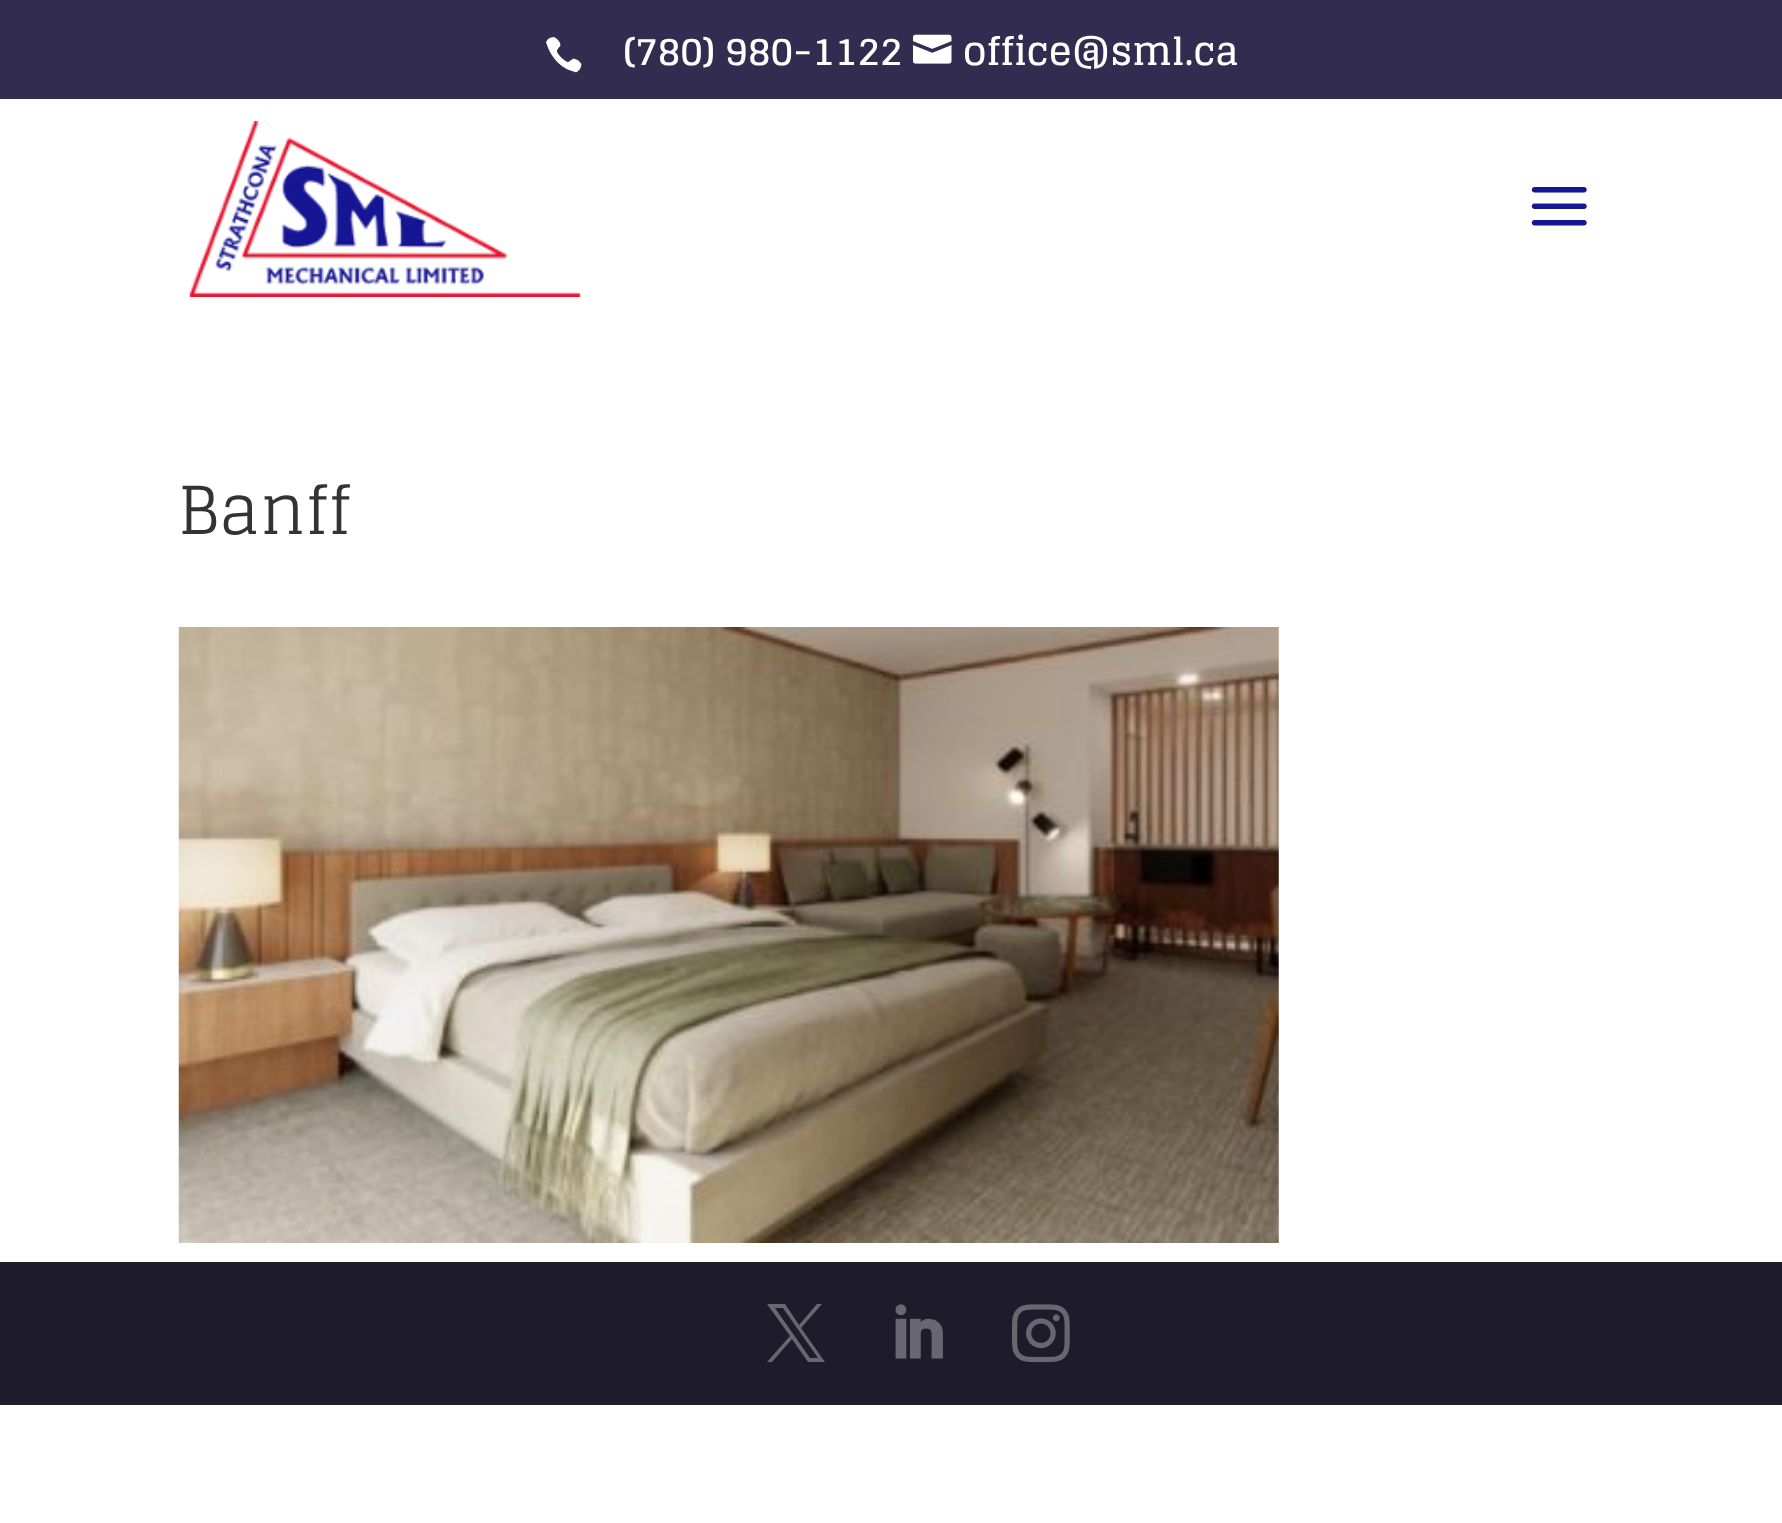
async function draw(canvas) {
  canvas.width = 1782
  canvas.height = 1523
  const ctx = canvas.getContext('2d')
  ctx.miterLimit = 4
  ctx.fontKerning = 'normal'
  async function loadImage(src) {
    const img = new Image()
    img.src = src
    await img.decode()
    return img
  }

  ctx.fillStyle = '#fff'
  ctx.fillRect(0, 0, 1782, 1523)
  ctx.fillStyle = '#322d50'
  ctx.fillRect(0, 0, 1782, 99)
  ctx.drawImage(await loadImage('image0.png'), 546, 37, 36, 36)
  ctx.font = 'bold 38.5px Glegoo'
  ctx.fillStyle = '#fff'
  ctx.fillText('(780) 980-1122', 623, 65)
  ctx.drawImage(await loadImage('image1.png'), 913, 34, 39, 30)
  ctx.fillText('office@sml.ca', 963, 65)
  ctx.drawImage(await loadImage('image2.png'), 189, 121, 392, 176)
  ctx.drawImage(await loadImage('image3.png'), 1531, 187, 56, 39)
  ctx.font = '66px Glegoo'
  ctx.fillStyle = '#333'
  ctx.fillText('Banff', 178, 534)
  ctx.drawImage(await loadImage('image4.png'), 178, 627, 1101, 616)
  ctx.fillStyle = '#1e1c2b'
  ctx.fillRect(0, 1262, 1782, 143)
  ctx.fillStyle = '#686771'
  ctx.beginPath()
  ctx.moveTo(767, 1304)
  ctx.lineTo(790, 1336)
  ctx.lineTo(767, 1362)
  ctx.lineTo(772, 1362)
  ctx.lineTo(792, 1339)
  ctx.lineTo(808, 1362)
  ctx.lineTo(825, 1362)
  ctx.lineTo(801, 1328)
  ctx.lineTo(822, 1304)
  ctx.lineTo(817, 1304)
  ctx.lineTo(799, 1325)
  ctx.lineTo(785, 1304)
  ctx.closePath()
  ctx.moveTo(775, 1308)
  ctx.lineTo(783, 1308)
  ctx.lineTo(818, 1358)
  ctx.lineTo(810, 1358)
  ctx.closePath()
  ctx.fill()
  ctx.drawImage(await loadImage('image5.png'), 895, 1304, 48, 55)
  ctx.drawImage(await loadImage('image6.png'), 1012, 1304, 58, 59)
}

draw(document.querySelector('canvas'))
